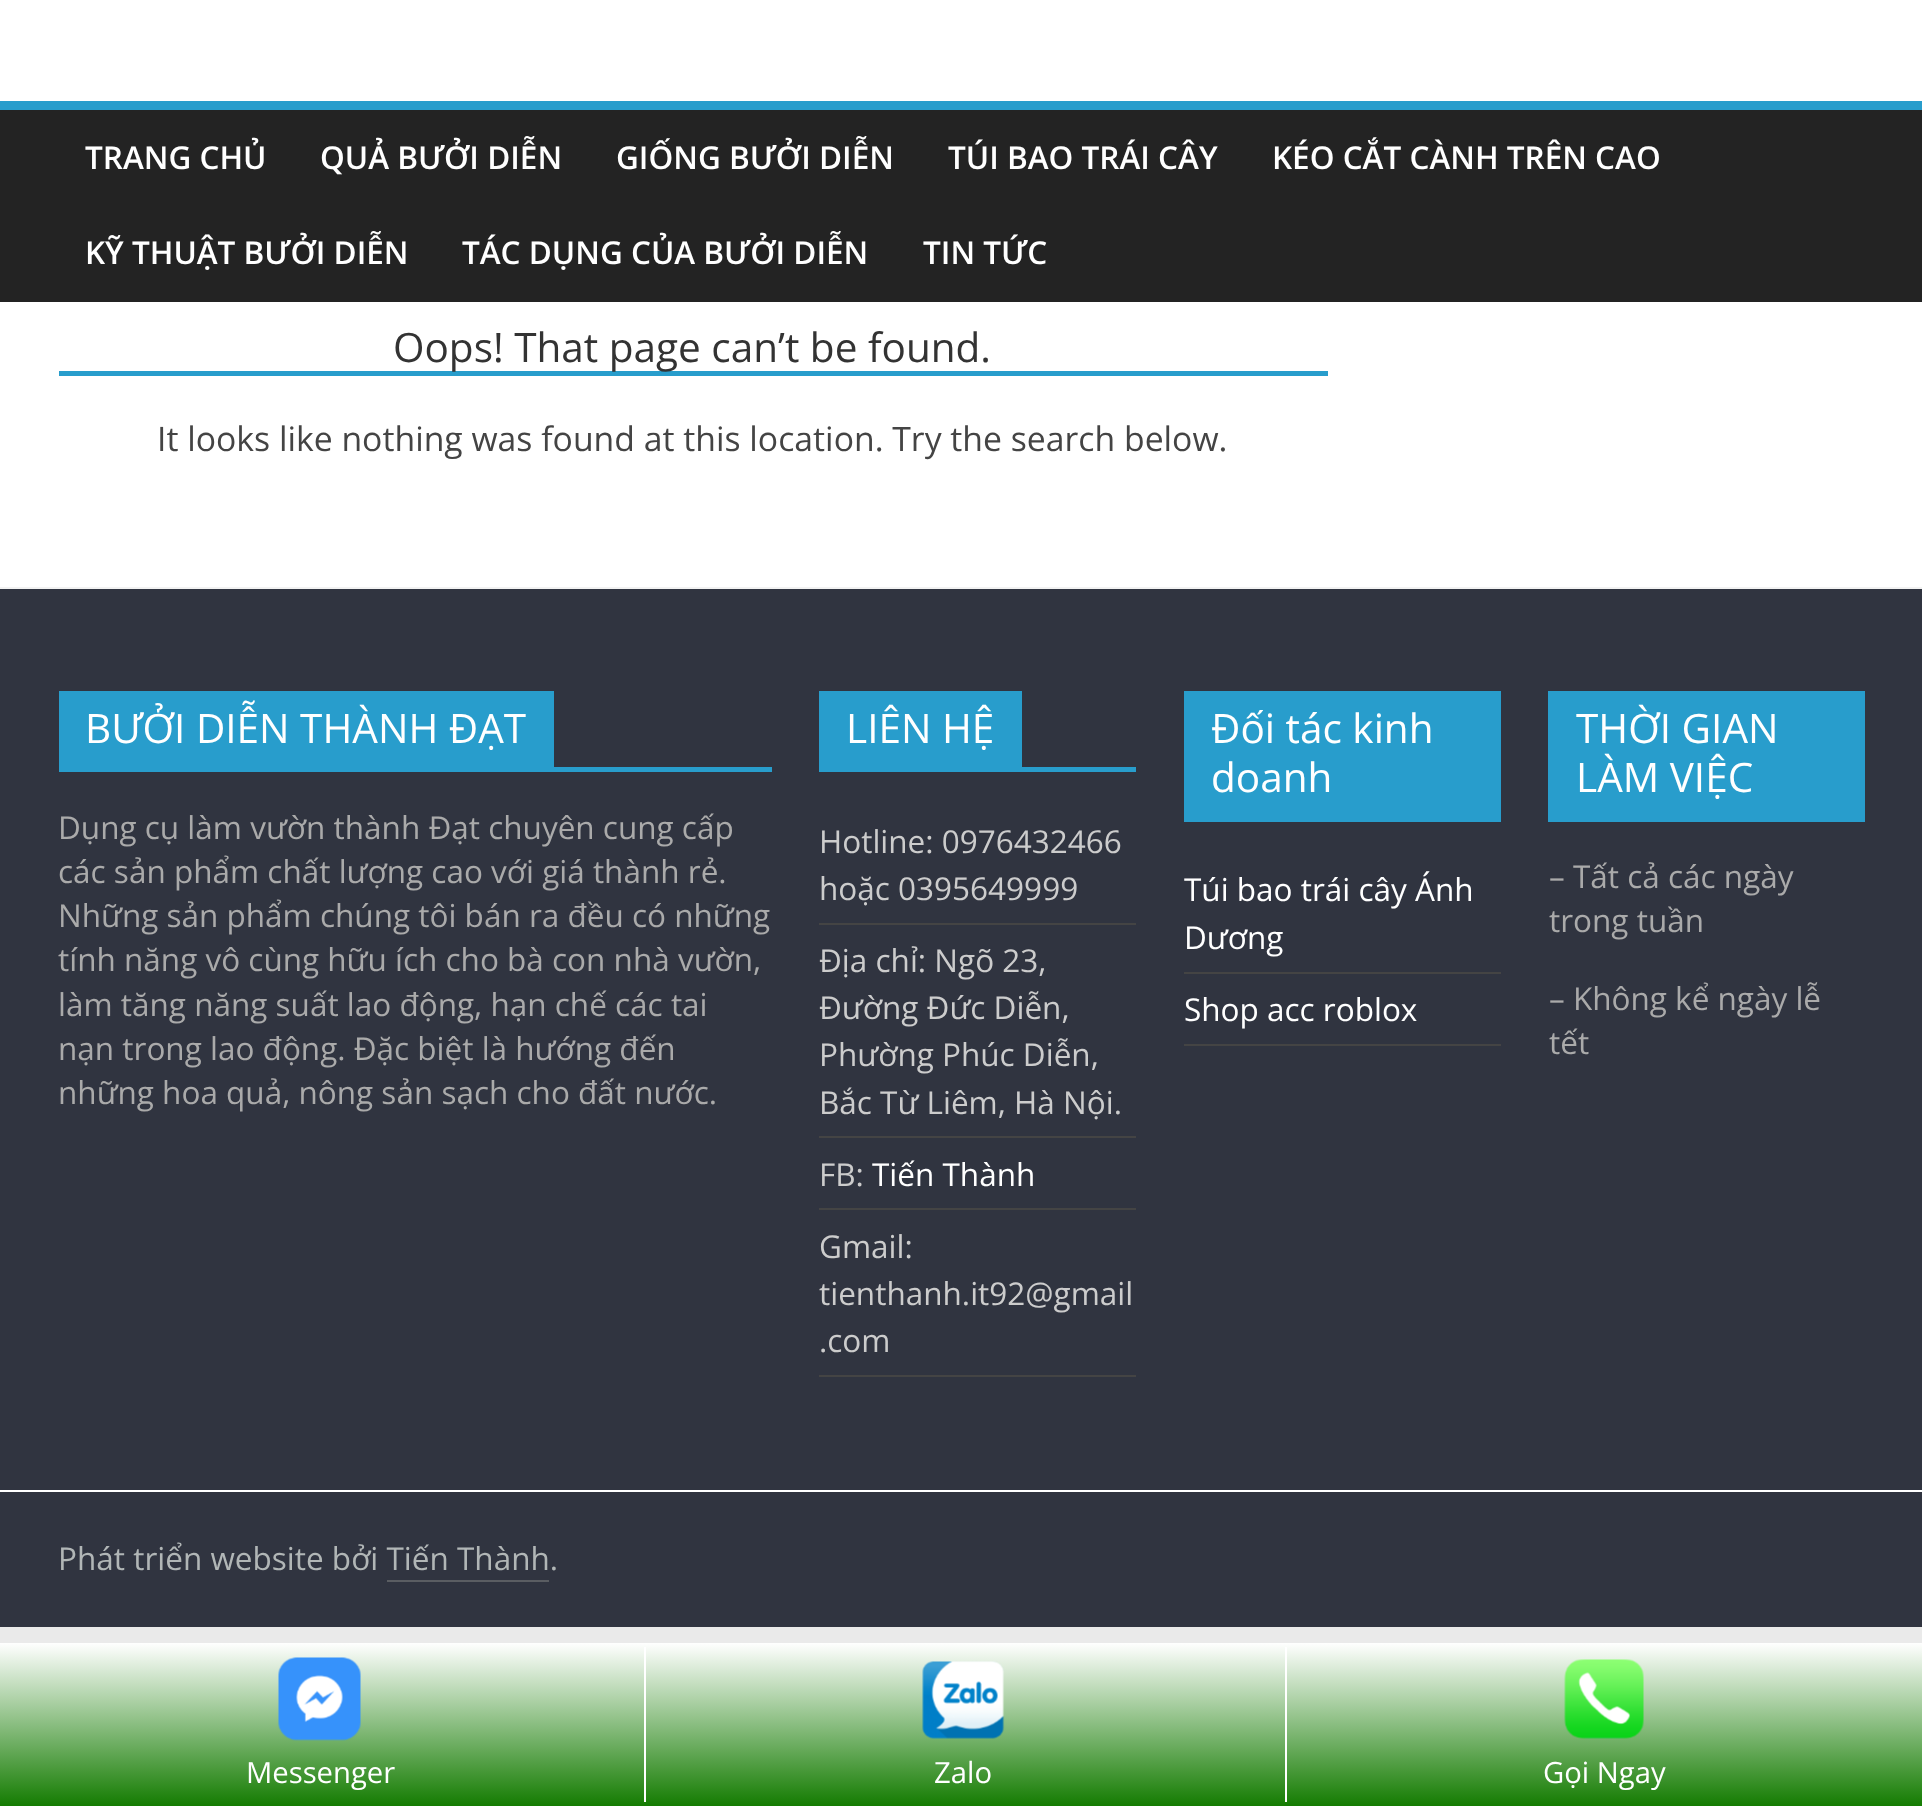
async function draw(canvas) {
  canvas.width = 1922
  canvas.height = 1806
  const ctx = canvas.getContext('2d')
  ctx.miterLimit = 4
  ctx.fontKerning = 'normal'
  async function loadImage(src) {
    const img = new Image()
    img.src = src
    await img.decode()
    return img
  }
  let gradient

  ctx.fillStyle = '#eaeaea'
  ctx.fillRect(0, 0, 1922, 1806)
  ctx.fillStyle = '#fff'
  ctx.fillRect(0, 0, 1922, 101)
  ctx.fillStyle = '#232323'
  ctx.fillRect(0, 110, 1922, 192)
  ctx.fillStyle = '#289dcc'
  ctx.fillRect(0, 101, 1922, 9)
  ctx.font = '600 31.5px Open Sans'
  ctx.fillStyle = '#fff'
  ctx.fillText('TRANG CHỦ', 85, 169)
  ctx.fillText('QUẢ BƯỞI DIỄN', 320, 169)
  ctx.fillText('GIỐNG BƯỞI DIỄN', 616, 169)
  ctx.fillText('TÚI BAO TRÁI CÂY', 948, 169)
  ctx.fillText('KÉO CẮT CÀNH TRÊN CAO', 1272, 169)
  ctx.fillText('KỸ THUẬT BƯỞI DIỄN', 85, 264)
  ctx.fillText('TÁC DỤNG CỦA BƯỞI DIỄN', 462, 264)
  ctx.fillText('TIN TỨC', 923, 264)
  ctx.fillRect(0, 302, 1922, 285)
  ctx.fillStyle = '#289dcc'
  ctx.fillRect(59, 371, 1269, 5)
  ctx.font = '40.5px Open Sans'
  ctx.fillStyle = '#333'
  ctx.fillText('Oops! That page can’t be found.', 393, 362)
  ctx.font = '33.75px Open Sans'
  ctx.fillStyle = '#444'
  ctx.fillText('It looks like nothing was found at this location. Try the search below.', 157, 451)
  ctx.fillStyle = '#303440'
  ctx.fillRect(0, 589, 1922, 901)
  ctx.fillStyle = '#f2f2f2'
  ctx.fillRect(0, 587, 1922, 2)
  ctx.fillStyle = '#289dcc'
  ctx.fillRect(59, 767, 713, 5)
  ctx.fillRect(59, 691, 495, 76)
  ctx.font = '40.5px Open Sans'
  ctx.fillStyle = '#fff'
  ctx.fillText('BƯỞI DIỄN THÀNH ĐẠT', 85, 743)
  ctx.font = '31.5px Open Sans'
  ctx.fillStyle = '#aaa'
  ctx.fillText('Dụng cụ làm vườn thành Đạt chuyên cung cấp', 58, 839)
  ctx.fillText('các sản phẩm chất lượng cao với giá thành rẻ.', 58, 883)
  ctx.fillText('Những sản phẩm chúng tôi bán ra đều có những', 58, 927)
  ctx.fillText('tính năng vô cùng hữu ích cho bà con nhà vườn,', 58, 971)
  ctx.fillText('làm tăng năng suất lao động, hạn chế các tai', 58, 1016)
  ctx.fillText('nạn trong lao động. Đặc biệt là hướng đến', 58, 1060)
  ctx.fillText('những hoa quả, nông sản sạch cho đất nước.', 58, 1104)
  ctx.fillStyle = '#289dcc'
  ctx.fillRect(819, 767, 317, 5)
  ctx.fillRect(819, 691, 203, 76)
  ctx.font = '40.5px Open Sans'
  ctx.fillStyle = '#fff'
  ctx.fillText('LIÊN HỆ', 846, 743)
  ctx.fillStyle = '#444'
  ctx.fillRect(819, 923, 317, 2)
  ctx.font = '31.5px Open Sans'
  ctx.fillStyle = '#ccc'
  ctx.fillText('Hotline: 0976432466', 819, 853)
  ctx.fillText('hoặc 0395649999', 819, 900)
  ctx.fillStyle = '#444'
  ctx.fillRect(819, 1136, 317, 2)
  ctx.fillStyle = '#ccc'
  ctx.fillText('Địa chỉ: Ngõ 23,', 819, 972)
  ctx.fillText('Đường Đức Diễn,', 819, 1019)
  ctx.fillText('Phường Phúc Diễn,', 819, 1066)
  ctx.fillText('Bắc Từ Liêm, Hà Nội.', 819, 1114)
  ctx.fillStyle = '#444'
  ctx.fillRect(819, 1208, 317, 2)
  ctx.fillStyle = '#ccc'
  ctx.fillText('FB:', 819, 1186)
  ctx.fillStyle = '#fff'
  ctx.fillText('Tiến Thành', 872, 1186)
  ctx.fillStyle = '#444'
  ctx.fillRect(819, 1375, 317, 2)
  ctx.fillStyle = '#ccc'
  ctx.fillText('Gmail:', 819, 1258)
  ctx.fillText('tienthanh.it92@gmail', 819, 1305)
  ctx.fillText('.com', 819, 1352)
  ctx.fillStyle = '#289dcc'
  ctx.fillRect(1184, 691, 317, 131)
  ctx.font = '40.5px Open Sans'
  ctx.fillStyle = '#fff'
  ctx.fillText('Đối tác kinh', 1211, 743)
  ctx.fillText('doanh', 1211, 792)
  ctx.fillStyle = '#444'
  ctx.fillRect(1184, 972, 317, 2)
  ctx.font = '31.5px Open Sans'
  ctx.fillStyle = '#fff'
  ctx.fillText('Túi bao trái cây Ánh', 1184, 901)
  ctx.fillText('Dương', 1184, 949)
  ctx.fillStyle = '#444'
  ctx.fillRect(1184, 1044, 317, 2)
  ctx.fillStyle = '#fff'
  ctx.fillText('Shop acc roblox', 1184, 1021)
  ctx.fillStyle = '#289dcc'
  ctx.fillRect(1548, 691, 317, 131)
  ctx.font = '40.5px Open Sans'
  ctx.fillStyle = '#fff'
  ctx.fillText('THỜI GIAN', 1576, 743)
  ctx.fillText('LÀM VIỆC', 1576, 792)
  ctx.font = '31.5px Open Sans'
  ctx.fillStyle = '#aaa'
  ctx.fillText('– Tất cả các ngày', 1549, 888)
  ctx.fillText('trong tuần', 1549, 932)
  ctx.fillText('– Không kể ngày lễ', 1549, 1010)
  ctx.fillText('tết', 1549, 1054)
  ctx.fillStyle = '#303440'
  ctx.fillRect(0, 1492, 1922, 135)
  ctx.fillStyle = '#fff'
  ctx.fillRect(0, 1490, 1922, 2)
  ctx.fillStyle = '#b1b6b6'
  ctx.fillText('Phát triển website bởi Tiến Thành.', 58, 1570)
  ctx.fillStyle = '#5a5d62'
  ctx.fillRect(387, 1580, 162, 2)
  gradient = ctx.createLinearGradient(962, 1643, 962, 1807)
  gradient.addColorStop(0, '#fff')
  gradient.addColorStop(1, '#137b00')
  ctx.fillStyle = gradient
  ctx.fillRect(0, 1643, 1922, 163)
  ctx.drawImage(await loadImage('image0.png'), 278, 1657, 83, 84)
  ctx.font = '29.25px Open Sans'
  ctx.fillStyle = '#fff'
  ctx.fillText('Messenger', 246, 1783)
  ctx.fillRect(644, 1647, 2, 155)
  ctx.drawImage(await loadImage('image1.png'), 922, 1661, 83, 78)
  ctx.fillText('Zalo', 934, 1783)
  ctx.fillRect(1285, 1647, 2, 155)
  ctx.drawImage(await loadImage('image2.png'), 1564, 1659, 80, 80)
  ctx.fillText('Gọi Ngay', 1543, 1783)
}

draw(document.querySelector('canvas'))
